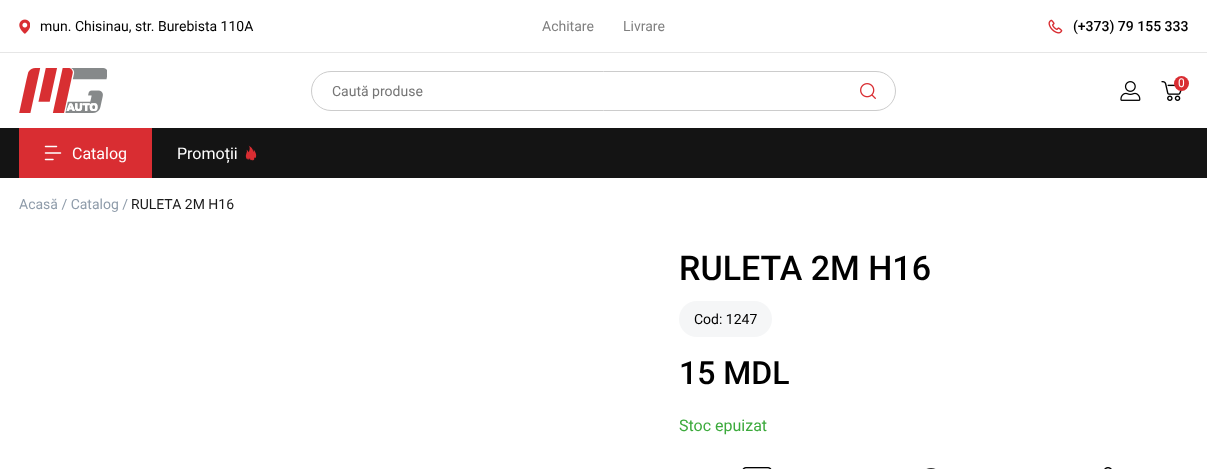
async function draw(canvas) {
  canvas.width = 1207
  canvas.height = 469
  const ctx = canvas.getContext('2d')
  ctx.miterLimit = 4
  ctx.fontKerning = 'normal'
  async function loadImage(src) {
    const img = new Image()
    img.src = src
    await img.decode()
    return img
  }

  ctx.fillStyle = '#fff'
  ctx.fillRect(0, 0, 1207, 469)
  ctx.drawImage(await loadImage('image0.png'), 19, 19, 11, 15)
  ctx.font = '14px Roboto'
  ctx.fillStyle = '#000'
  ctx.fillText('mun. Chisinau, str. Burebista 110A', 40, 31)
  ctx.fillStyle = '#808080'
  ctx.fillText('Achitare', 542, 31)
  ctx.fillText('Livrare', 623, 31)
  ctx.drawImage(await loadImage('image1.png'), 1048, 19, 15, 15)
  ctx.font = '500 14px Roboto'
  ctx.fillStyle = '#000'
  ctx.fillText('(+373) 79 155 333', 1073, 31)
  ctx.fillStyle = '#e6e6e6'
  ctx.fillRect(0, 52, 1207, 1)
  ctx.drawImage(await loadImage('image2.png'), 19, 68, 88, 45)
  ctx.drawImage(await loadImage('image3.png'), 1120, 81, 21, 20)
  ctx.drawImage(await loadImage('image4.png'), 1161, 81, 21, 20)
  ctx.fillStyle = '#d92d32'
  ctx.beginPath()
  ctx.arc(1181.5, 83.5, 7.5, 0, 2 * Math.PI)
  ctx.fill()
  ctx.font = '12px Roboto'
  ctx.fillStyle = '#fff'
  ctx.fillText('0', 1178, 87)
  ctx.beginPath()
  ctx.roundRect(311.5, 71.5, 584, 39, 19.5)
  ctx.strokeStyle = '#ccc'
  ctx.stroke()
  ctx.font = '14px Roboto'
  ctx.fillStyle = '#757575'
  ctx.fillText('Caută produse', 332, 96)
  ctx.drawImage(await loadImage('image5.png'), 860, 83, 16, 16)
  ctx.fillStyle = '#141414'
  ctx.fillRect(0, 128, 1207, 50)
  ctx.fillStyle = '#d92d32'
  ctx.fillRect(19, 128, 133, 50)
  ctx.beginPath()
  ctx.moveTo(45.5, 146.5)
  ctx.lineTo(56.5, 146.5)
  ctx.moveTo(45.5, 153)
  ctx.lineTo(60.5, 153)
  ctx.moveTo(45.5, 159.5)
  ctx.lineTo(53, 159.5)
  ctx.strokeStyle = '#fff'
  ctx.lineWidth = 1.5
  ctx.lineCap = 'round'
  ctx.lineJoin = 'round'
  ctx.stroke()
  ctx.font = '16px Roboto'
  ctx.fillStyle = '#fff'
  ctx.fillText('Catalog', 72, 159)
  ctx.fillText('Promoții', 177, 159)
  ctx.drawImage(await loadImage('image6.png'), 245, 145, 12, 16)
  ctx.font = '14px Roboto'
  ctx.fillStyle = '#8f9caa'
  ctx.fillText('Acasă / Catalog /', 19, 209)
  ctx.fillStyle = '#1a1a1a'
  ctx.fillText('RULETA 2M H16', 131, 209)
  ctx.font = '500 34px Roboto'
  ctx.fillStyle = '#000'
  ctx.fillText('RULETA 2M H16', 679, 280)
  ctx.fillStyle = '#f5f6f7'
  ctx.beginPath()
  ctx.roundRect(679, 301, 93, 36, 18)
  ctx.fill()
  ctx.font = '14px Roboto'
  ctx.fillStyle = '#000'
  ctx.fillText('Cod: 1247', 694, 324)
  ctx.font = '500 32px Roboto'
  ctx.fillText('15 MDL', 679, 384)
  ctx.font = '16px Roboto'
  ctx.fillStyle = '#3caa3c'
  ctx.fillText('Stoc epuizat', 679, 431)
  ctx.drawImage(await loadImage('image7.png'), 742, 467, 30, 2)
  ctx.drawImage(await loadImage('image8.png'), 926, 468, 10, 1)
  ctx.drawImage(await loadImage('image9.png'), 1104, 467, 8, 2)
}

draw(document.querySelector('canvas'))
